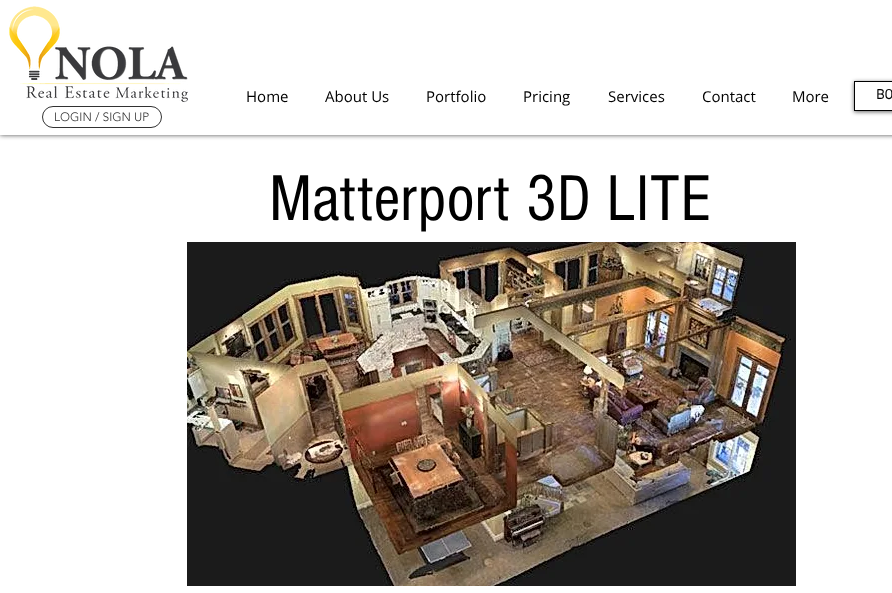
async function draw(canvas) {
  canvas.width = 892
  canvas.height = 593
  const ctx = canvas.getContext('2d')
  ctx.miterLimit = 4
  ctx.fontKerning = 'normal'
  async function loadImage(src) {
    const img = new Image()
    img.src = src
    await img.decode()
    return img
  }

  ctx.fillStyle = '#fff'
  ctx.fillRect(0, 0, 892, 593)
  ctx.fillStyle = '#000000b3'
  ctx.filter = 'blur(2.5px)'
  ctx.beginPath()
  ctx.rect(0, 0, 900, 135)
  ctx.fill()
  ctx.filter = 'none'
  ctx.fillStyle = '#fff'
  ctx.fillRect(0, 0, 892, 135)
  ctx.drawImage(await loadImage('image0.png'), 9, 6, 179, 97)
  ctx.font = '15px Open Sans'
  ctx.fillStyle = '#000'
  ctx.fillText('Home', 246, 102)
  ctx.fillText('About Us', 325, 102)
  ctx.fillText('Portfolio', 426, 102)
  ctx.fillText('Pricing', 523, 102)
  ctx.fillText('Services', 608, 102)
  ctx.fillText('Contact', 702, 102)
  ctx.fillText('More', 792, 102)
  ctx.save()
  ctx.beginPath()
  ctx.moveTo(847, 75)
  ctx.lineTo(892, 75)
  ctx.lineTo(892, 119)
  ctx.lineTo(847, 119)
  ctx.closePath()
  ctx.moveTo(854, 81)
  ctx.lineTo(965, 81)
  ctx.lineTo(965, 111)
  ctx.lineTo(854, 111)
  ctx.closePath()
  ctx.clip('evenodd')
  ctx.fillStyle = '#00000099'
  ctx.filter = 'blur(2px)'
  ctx.beginPath()
  ctx.rect(854, 82, 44, 30)
  ctx.fill()
  ctx.filter = 'none'
  ctx.restore()
  ctx.strokeStyle = '#000'
  ctx.strokeRect(854.5, 81.5, 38, 29)
  ctx.font = 'bold 14px "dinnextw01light"'
  ctx.fillText('BO', 876, 99)
  ctx.beginPath()
  ctx.roundRect(42.5, 106.5, 119, 21, 10.5)
  ctx.strokeStyle = '#323232'
  ctx.stroke()
  ctx.font = '300 12px "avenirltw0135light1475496"'
  ctx.fillStyle = '#323232'
  ctx.fillText('LOGIN / SIGN UP', 54, 121)
  ctx.font = '67px "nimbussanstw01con"'
  ctx.fillStyle = '#000'
  ctx.fillText('Matterport 3D LITE', 269, 220)
  ctx.drawImage(await loadImage('image1.png'), 187, 242, 609, 344)
}

draw(document.querySelector('canvas'))
